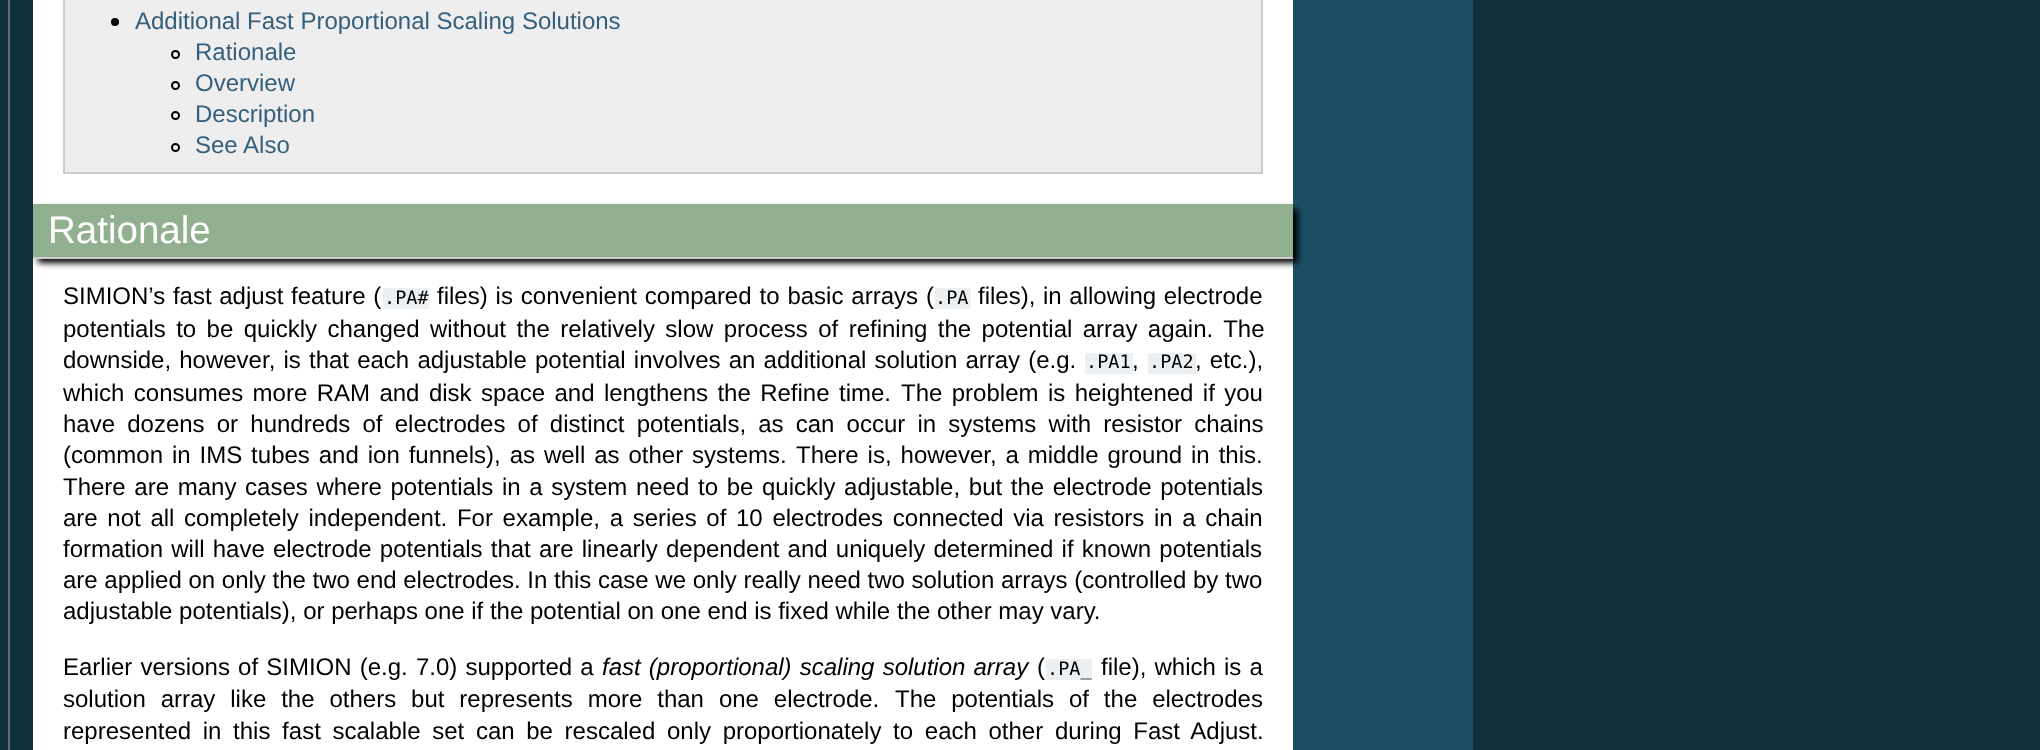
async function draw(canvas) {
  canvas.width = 2040
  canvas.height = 750
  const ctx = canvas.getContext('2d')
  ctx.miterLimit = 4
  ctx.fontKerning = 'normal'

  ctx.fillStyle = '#11303d'
  ctx.fillRect(0, 0, 2040, 750)
  ctx.fillStyle = '#616787'
  ctx.fillRect(8, 0, 2, 750)
  ctx.fillStyle = '#1c4e63'
  ctx.fillRect(1293, 0, 180, 750)
  ctx.fillStyle = '#fff'
  ctx.fillRect(33, 0, 1260, 750)
  ctx.fillStyle = '#eee'
  ctx.beginPath()
  ctx.rect(64, -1, 1198, 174)
  ctx.fill()
  ctx.strokeStyle = '#ccc'
  ctx.lineWidth = 2
  ctx.stroke()
  ctx.fillStyle = '#000'
  ctx.beginPath()
  ctx.arc(115, 22, 4, 0, 2 * Math.PI)
  ctx.fill()
  ctx.font = '24px Liberation Sans'
  ctx.fillStyle = '#355f7c'
  ctx.fillText('Additional Fast Proportional Scaling Solutions', 135, 29)
  ctx.beginPath()
  ctx.arc(175.5, 54.5, 3.5, 0, 2 * Math.PI)
  ctx.strokeStyle = '#000'
  ctx.stroke()
  ctx.fillText('Rationale', 195, 60)
  ctx.beginPath()
  ctx.arc(175.5, 85.5, 3.5, 0, 2 * Math.PI)
  ctx.stroke()
  ctx.fillText('Overview', 195, 91)
  ctx.beginPath()
  ctx.arc(175.5, 115.5, 3.5, 0, 2 * Math.PI)
  ctx.stroke()
  ctx.fillText('Description', 195, 122)
  ctx.beginPath()
  ctx.arc(175.5, 147.5, 3.5, 0, 2 * Math.PI)
  ctx.stroke()
  ctx.fillText('See Also', 195, 153)
  ctx.fillStyle = '#000'
  ctx.filter = 'blur(3px)'
  ctx.beginPath()
  ctx.rect(38, 209, 1260, 54)
  ctx.fill()
  ctx.filter = 'none'
  ctx.fillStyle = '#90b090'
  ctx.fillRect(33, 204, 1260, 53)
  ctx.fillStyle = '#ccc'
  ctx.fillRect(33, 257, 1260, 2)
  ctx.font = '38.5px Liberation Sans'
  ctx.fillStyle = '#fff'
  ctx.fillText('Rationale', 48, 243)
  ctx.wordSpacing = '1px'
  ctx.font = '24px Liberation Sans'
  ctx.fillStyle = '#000'
  ctx.fillText('SIMION’s fast adjust feature (', 63, 304)
  ctx.fillStyle = '#ecf0f3'
  ctx.fillRect(383, 288, 46, 21)
  ctx.wordSpacing = '0px'
  ctx.font = '18.5px DejaVu Sans Mono'
  ctx.fillStyle = '#000'
  ctx.fillText('.PA#', 384, 304)
  ctx.wordSpacing = '1.25px'
  ctx.font = '24px Liberation Sans'
  ctx.fillText('files) is convenient compared to basic arrays (', 437, 304)
  ctx.fillStyle = '#ecf0f3'
  ctx.fillRect(935, 288, 36, 21)
  ctx.wordSpacing = '0px'
  ctx.font = '18.5px DejaVu Sans Mono'
  ctx.fillStyle = '#000'
  ctx.fillText('.PA', 935, 304)
  ctx.wordSpacing = '1px'
  ctx.font = '24px Liberation Sans'
  ctx.fillText('files), in allowing electrode', 978, 304)
  ctx.wordSpacing = '3.75px'
  ctx.fillText('potentials to be quickly changed without the relatively slow process of refining the potential array again. The', 63, 337)
  ctx.wordSpacing = '1.5px'
  ctx.fillText('downside, however, is that each adjustable potential involves an additional solution array (e.g.', 63, 368)
  ctx.fillStyle = '#ecf0f3'
  ctx.fillRect(1085, 353, 48, 21)
  ctx.wordSpacing = '0px'
  ctx.font = '18.5px DejaVu Sans Mono'
  ctx.fillStyle = '#000'
  ctx.fillText('.PA1', 1086, 368)
  ctx.font = '24px Liberation Sans'
  ctx.fillText(',', 1132, 368)
  ctx.fillStyle = '#ecf0f3'
  ctx.fillRect(1148, 353, 48, 21)
  ctx.font = '18.5px DejaVu Sans Mono'
  ctx.fillStyle = '#000'
  ctx.fillText('.PA2', 1149, 368)
  ctx.wordSpacing = '1.5px'
  ctx.font = '24px Liberation Sans'
  ctx.fillText(', etc.),', 1195, 368)
  ctx.wordSpacing = '2.75px'
  ctx.fillText('which consumes more RAM and disk space and lengthens the Refine time.', 63, 401)
  ctx.fillText('The problem is heightened if you', 901, 401)
  ctx.wordSpacing = '5.5px'
  ctx.fillText('have dozens or hundreds of electrodes of distinct potentials, as can occur in systems with resistor chains', 63, 432)
  ctx.wordSpacing = '2.25px'
  ctx.fillText('(common in IMS tubes and ion funnels), as well as other systems.', 63, 463)
  ctx.fillText('There is, however, a middle ground in this.', 796, 463)
  ctx.wordSpacing = '2px'
  ctx.fillText('There are many cases where potentials in a system need to be quickly adjustable, but the electrode potentials', 63, 495)
  ctx.wordSpacing = '3px'
  ctx.fillText('are not all completely independent. For example, a series of 10 electrodes connected via resistors in a chain', 63, 526)
  ctx.wordSpacing = '1.5px'
  ctx.fillText('formation will have electrode potentials that are linearly dependent and uniquely determined if known potentials', 63, 557)
  ctx.wordSpacing = '0px'
  ctx.fillText('are applied on only the two end electrodes. In this case we only really need two solution arrays (controlled by two', 63, 588)
  ctx.fillText('adjustable potentials), or perhaps one if the potential on one end is fixed while the other may vary.', 63, 619)
  ctx.wordSpacing = '1.5px'
  ctx.fillText('Earlier versions of SIMION (e.g. 7.0) supported a', 63, 675)
  ctx.font = 'italic 24px Liberation Sans'
  ctx.fillText('fast (proportional) scaling solution array', 602, 675)
  ctx.wordSpacing = '0px'
  ctx.font = '24px Liberation Sans'
  ctx.fillText('(', 1037, 675)
  ctx.fillStyle = '#ecf0f3'
  ctx.fillRect(1046, 659, 46, 21)
  ctx.font = '18.5px DejaVu Sans Mono'
  ctx.fillStyle = '#000'
  ctx.fillText('.PA_', 1047, 675)
  ctx.wordSpacing = '1.5px'
  ctx.font = '24px Liberation Sans'
  ctx.fillText('file), which is a', 1101, 675)
  ctx.wordSpacing = '8.25px'
  ctx.fillText('solution array like the others but represents more than one electrode.', 63, 707)
  ctx.fillText('The potentials of the electrodes', 895, 707)
  ctx.wordSpacing = '5px'
  ctx.fillText('represented in this fast scalable set can be rescaled only proportionately to each other during Fast Adjust.', 63, 739)
}

draw(document.querySelector('canvas'))
